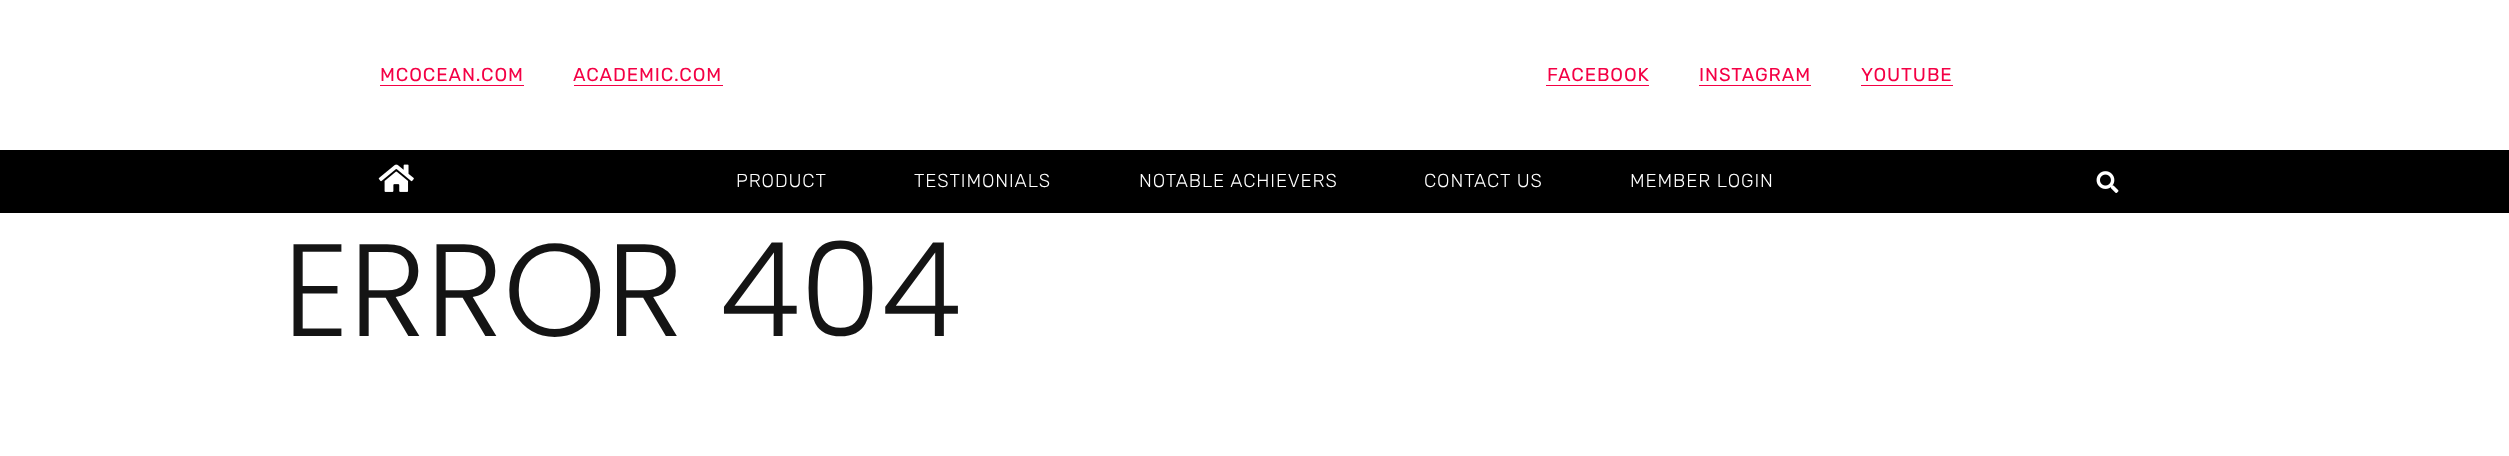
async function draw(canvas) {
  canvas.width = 2509
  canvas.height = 456
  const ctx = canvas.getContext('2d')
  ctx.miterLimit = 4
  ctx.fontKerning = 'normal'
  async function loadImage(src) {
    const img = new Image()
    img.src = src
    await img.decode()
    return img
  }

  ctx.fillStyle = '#fff'
  ctx.fillRect(0, 0, 2509, 456)
  ctx.letterSpacing = '0.9px'
  ctx.font = '18.75px Rubik'
  ctx.fillStyle = '#f40045'
  ctx.fillText('MCOCEAN.COM', 380, 81)
  ctx.fillRect(380, 85, 144, 1)
  ctx.fillText('ACADEMIC.COM', 573, 81)
  ctx.fillRect(574, 85, 149, 1)
  ctx.fillText('FACEBOOK', 1547, 81)
  ctx.fillRect(1546, 85, 103, 1)
  ctx.fillText('INSTAGRAM', 1699, 81)
  ctx.fillRect(1699, 85, 112, 1)
  ctx.fillText('YOUTUBE', 1861, 81)
  ctx.fillRect(1861, 85, 92, 1)
  ctx.fillStyle = '#000'
  ctx.fillRect(0, 150, 2509, 63)
  ctx.drawImage(await loadImage('image0.png'), 378, 164, 36, 28)
  ctx.font = '300 18.75px Rubik'
  ctx.fillStyle = '#fff'
  ctx.fillText('PRODUCT', 736, 187)
  ctx.fillText('TESTIMONIALS', 914, 187)
  ctx.fillText('NOTABLE ACHIEVERS', 1139, 187)
  ctx.fillText('CONTACT US', 1424, 187)
  ctx.fillText('MEMBER LOGIN', 1630, 187)
  ctx.drawImage(await loadImage('image1.png'), 2096, 171, 23, 22)
  ctx.letterSpacing = '0px'
  ctx.font = '300 131.25px Poppins'
  ctx.fillStyle = '#141414'
  ctx.fillText('ERROR 404', 283, 336)
}

draw(document.querySelector('canvas'))
